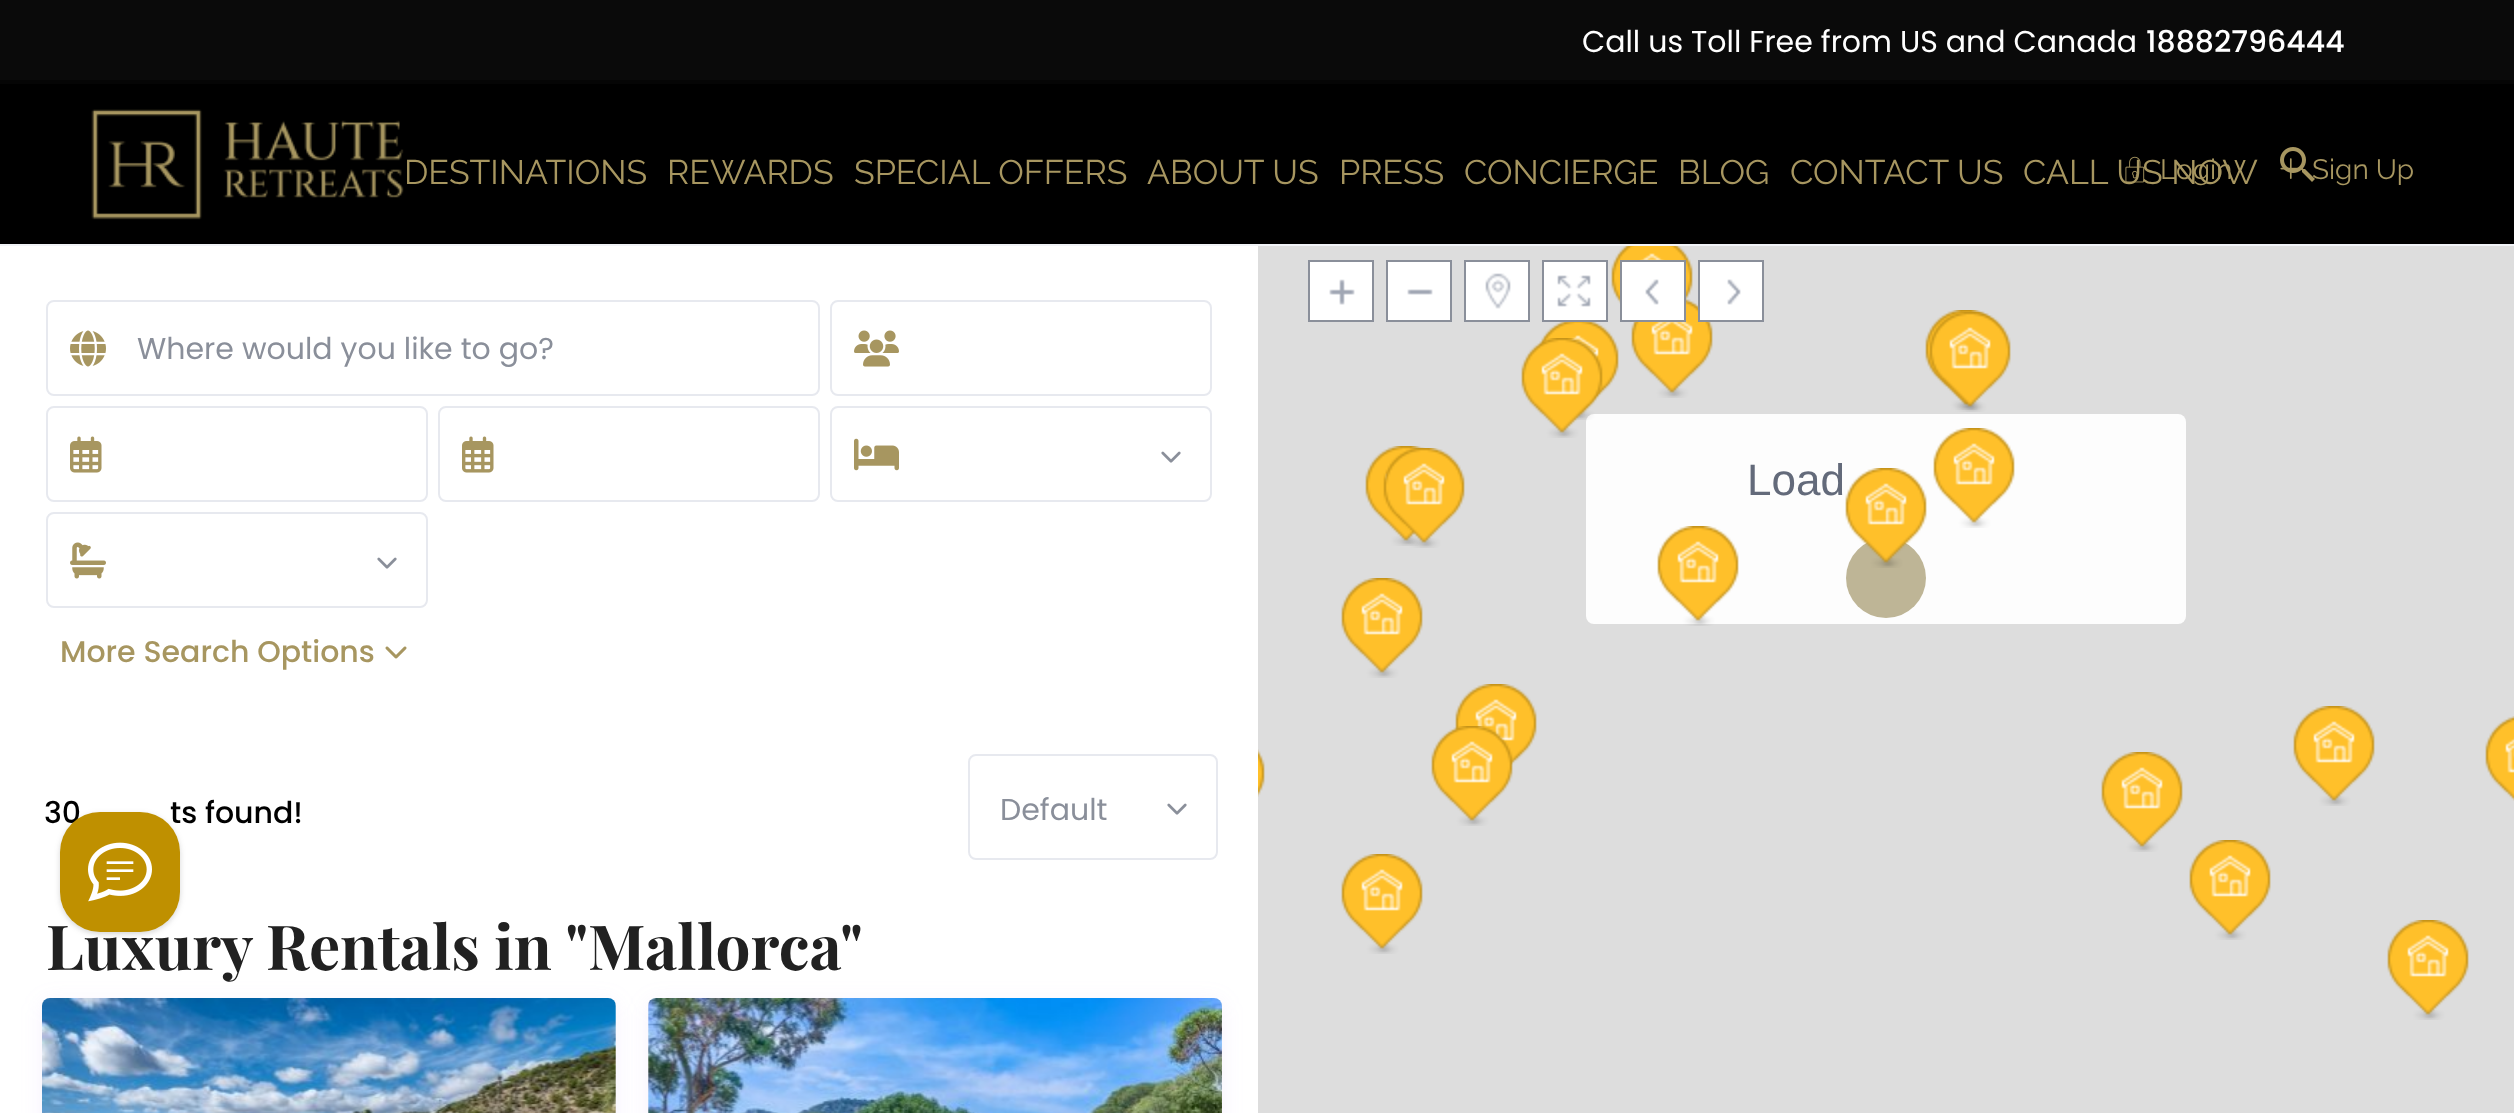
async function draw(canvas) {
  canvas.width = 2514
  canvas.height = 1113
  const ctx = canvas.getContext('2d')
  ctx.miterLimit = 4
  ctx.fontKerning = 'normal'
  async function loadImage(src) {
    const img = new Image()
    img.src = src
    await img.decode()
    return img
  }

  ctx.fillStyle = '#fff'
  ctx.fillRect(0, 0, 2514, 1113)
  ctx.fillStyle = '#050505'
  ctx.fillRect(0, 80, 2514, 4)
  ctx.fillStyle = '#0a0a0a'
  ctx.fillRect(0, 0, 2514, 80)
  ctx.font = '30px Poppins'
  ctx.fillStyle = '#fff'
  ctx.fillText('Call us Toll Free from US and Canada', 1582, 52)
  ctx.font = '500 30px Poppins'
  ctx.fillText('18882796444', 2146, 52)
  ctx.fillStyle = '#f1f3f7'
  ctx.fillRect(0, 244, 2514, 2)
  ctx.fillStyle = '#000'
  ctx.fillRect(0, 84, 2514, 160)
  ctx.drawImage(await loadImage('image0.png'), 91, 109, 313, 111)
  ctx.font = '34px Raleway'
  ctx.fillStyle = '#a79660'
  ctx.fillText('DESTINATIONS', 404, 184)
  ctx.fillText('REWARDS', 667, 184)
  ctx.fillText('SPECIAL OFFERS', 854, 184)
  ctx.fillText('ABOUT US', 1147, 184)
  ctx.fillText('PRESS', 1339, 184)
  ctx.fillText('CONCIERGE', 1464, 184)
  ctx.fillText('BLOG', 1678, 184)
  ctx.fillText('CONTACT US', 1790, 184)
  ctx.fillText('CALL US NOW', 2023, 184)
  ctx.drawImage(await loadImage('image1.png'), 2280, 147, 35, 35)
  ctx.drawImage(await loadImage('image2.png'), 2125, 156, 20, 27)
  ctx.font = '28px Raleway'
  ctx.fillText('Login', 2160, 179)
  ctx.drawImage(await loadImage('image3.png'), 2280, 158, 19, 21)
  ctx.fillText('Sign Up', 2312, 179)
  ctx.beginPath()
  ctx.roundRect(47, 301, 772, 94, 7)
  ctx.strokeStyle = '#e7e9ef'
  ctx.lineWidth = 2
  ctx.stroke()
  ctx.drawImage(await loadImage('image4.png'), 70, 330, 36, 37)
  ctx.font = '30px Poppins'
  ctx.fillStyle = '#8a8f9a'
  ctx.fillText('Where would you like to go?', 137, 359)
  ctx.beginPath()
  ctx.roundRect(831, 301, 380, 94, 7)
  ctx.stroke()
  ctx.drawImage(await loadImage('image5.png'), 854, 330, 45, 37)
  ctx.beginPath()
  ctx.roundRect(47, 407, 380, 94, 7)
  ctx.stroke()
  ctx.drawImage(await loadImage('image6.png'), 70, 436, 32, 37)
  ctx.beginPath()
  ctx.roundRect(439, 407, 380, 94, 7)
  ctx.stroke()
  ctx.drawImage(await loadImage('image6.png'), 462, 436, 32, 37)
  ctx.beginPath()
  ctx.roundRect(831, 407, 380, 94, 7)
  ctx.stroke()
  ctx.drawImage(await loadImage('image7.png'), 1161, 451, 20, 12)
  ctx.drawImage(await loadImage('image8.png'), 854, 438, 45, 33)
  ctx.beginPath()
  ctx.roundRect(47, 513, 380, 94, 7)
  ctx.stroke()
  ctx.drawImage(await loadImage('image7.png'), 377, 557, 20, 12)
  ctx.drawImage(await loadImage('image9.png'), 70, 542, 36, 37)
  ctx.font = '500 30px Poppins'
  ctx.fillStyle = '#a79660'
  ctx.fillText('More Search Options', 60, 662)
  ctx.drawImage(await loadImage('image10.png'), 385, 646, 22, 13)
  ctx.fillStyle = '#000'
  ctx.fillText('30', 44, 823)
  ctx.fillText('ts found!', 170, 823)
  ctx.beginPath()
  ctx.roundRect(969, 755, 248, 104, 7)
  ctx.stroke()
  ctx.font = '30px Poppins'
  ctx.fillStyle = '#8a8f9a'
  ctx.fillText('Default', 1000, 820)
  ctx.drawImage(await loadImage('image7.png'), 1167, 803, 20, 12)
  ctx.font = 'bold 62px Playfair Display'
  ctx.fillStyle = '#212121'
  ctx.fillText('Luxury Rentals in "Mallorca"', 46, 970)
  ctx.fillStyle = '#b57ffa1a'
  ctx.filter = 'blur(11px)'
  ctx.beginPath()
  ctx.roundRect(42, 1002, 574, 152, 8)
  ctx.fill()
  ctx.filter = 'none'
  ctx.filter = 'blur(11px)'
  ctx.beginPath()
  ctx.roundRect(648, 1002, 574, 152, 8)
  ctx.fill()
  ctx.filter = 'none'
  ctx.fillStyle = '#f7f7f7'
  ctx.beginPath()
  ctx.moveTo(50, 998)
  ctx.lineTo(608, 998)
  ctx.bezierCurveTo(612.5, 998, 616, 1001.5, 616, 1006)
  ctx.lineTo(616, 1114)
  ctx.lineTo(42, 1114)
  ctx.lineTo(42, 1006)
  ctx.bezierCurveTo(42, 1001.5, 45.5, 998, 50, 998)
  ctx.closePath()
  ctx.fill()
  ctx.drawImage(await loadImage('image11.png'), 42, 998, 574, 115)
  ctx.beginPath()
  ctx.moveTo(656, 998)
  ctx.lineTo(1214, 998)
  ctx.bezierCurveTo(1218.5, 998, 1222, 1001.5, 1222, 1006)
  ctx.lineTo(1222, 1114)
  ctx.lineTo(648, 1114)
  ctx.lineTo(648, 1006)
  ctx.bezierCurveTo(648, 1001.5, 651.5, 998, 656, 998)
  ctx.closePath()
  ctx.fill()
  ctx.drawImage(await loadImage('image12.png'), 648, 998, 574, 115)
  ctx.fillStyle = '#ddd'
  ctx.fillRect(1258, 246, 1256, 867)
  ctx.fillStyle = '#fff'
  ctx.fillRect(1310, 262, 62, 58)
  ctx.drawImage(await loadImage('image13.png'), 1329, 279, 26, 26)
  ctx.strokeStyle = '#8a8f9a'
  ctx.strokeRect(1309, 261, 64, 60)
  ctx.fillRect(1388, 262, 62, 58)
  ctx.drawImage(await loadImage('image14.png'), 1407, 289, 26, 6)
  ctx.strokeRect(1387, 261, 64, 60)
  ctx.fillRect(1466, 262, 62, 58)
  ctx.drawImage(await loadImage('image15.png'), 1485, 273, 26, 36)
  ctx.strokeRect(1465, 261, 64, 60)
  ctx.fillRect(1544, 262, 62, 58)
  ctx.drawImage(await loadImage('image16.png'), 1557, 275, 34, 32)
  ctx.strokeRect(1543, 261, 64, 60)
  ctx.drawImage(await loadImage('image19.png'), 1611, 246, 82, 58)
  ctx.drawImage(await loadImage('image20.png'), 1631, 298, 82, 100)
  ctx.fillRect(1622, 262, 62, 58)
  ctx.drawImage(await loadImage('image17.png'), 1645, 279, 14, 26)
  ctx.strokeRect(1621, 261, 64, 60)
  ctx.fillRect(1700, 262, 62, 58)
  ctx.drawImage(await loadImage('image18.png'), 1727, 279, 14, 26)
  ctx.strokeRect(1699, 261, 64, 60)
  ctx.drawImage(await loadImage('image21.png'), 1925, 310, 82, 100)
  ctx.fillStyle = '#fdfdfd'
  ctx.beginPath()
  ctx.roundRect(1586, 414, 600, 210, 8)
  ctx.fill()
  ctx.drawImage(await loadImage('image22.png'), 1537, 322, 82, 98)
  ctx.drawImage(await loadImage('image23.png'), 1929, 312, 82, 100)
  ctx.drawImage(await loadImage('image24.png'), 1521, 338, 82, 100)
  ctx.drawImage(await loadImage('image25.png'), 1365, 446, 60, 100)
  ctx.drawImage(await loadImage('image26.png'), 1933, 428, 82, 100)
  ctx.drawImage(await loadImage('image21.png'), 1341, 578, 82, 100)
  ctx.drawImage(await loadImage('image27.png'), 1383, 448, 82, 100)
  ctx.drawImage(await loadImage('image28.png'), 1657, 526, 82, 100)
  ctx.fillStyle = '#beb596'
  ctx.beginPath()
  ctx.arc(1886, 578, 40, 0, 2 * Math.PI)
  ctx.fill()
  ctx.drawImage(await loadImage('image29.png'), 1845, 468, 82, 100)
  ctx.drawImage(await loadImage('image21.png'), 1455, 684, 82, 100)
  ctx.drawImage(await loadImage('image21.png'), 2293, 706, 82, 100)
  ctx.drawImage(await loadImage('image30.png'), 2485, 716, 29, 85)
  ctx.drawImage(await loadImage('image31.png'), 1258, 749, 7, 48)
  ctx.drawImage(await loadImage('image32.png'), 1431, 726, 82, 100)
  ctx.drawImage(await loadImage('image21.png'), 2101, 752, 82, 100)
  ctx.drawImage(await loadImage('image21.png'), 1341, 854, 82, 100)
  ctx.drawImage(await loadImage('image21.png'), 2189, 840, 82, 100)
  ctx.drawImage(await loadImage('image21.png'), 2387, 920, 82, 100)
  ctx.font = '44px Liberation Sans'
  ctx.fillStyle = '#636a7a'
  ctx.fillText('Load', 1747, 495)
  ctx.fillStyle = '#0000000f'
  ctx.filter = 'blur(2px)'
  ctx.beginPath()
  ctx.roundRect(60, 814, 120, 120, 40)
  ctx.fill()
  ctx.filter = 'none'
  ctx.fillStyle = '#0000001a'
  ctx.filter = 'blur(3px)'
  ctx.beginPath()
  ctx.roundRect(60, 814, 120, 120, 40)
  ctx.fill()
  ctx.filter = 'none'
  ctx.fillStyle = '#bf9000'
  ctx.beginPath()
  ctx.roundRect(60, 812, 120, 120, 40)
  ctx.fill()
  ctx.drawImage(await loadImage('image33.png'), 88, 842, 64, 60)
}

draw(document.querySelector('canvas'))
